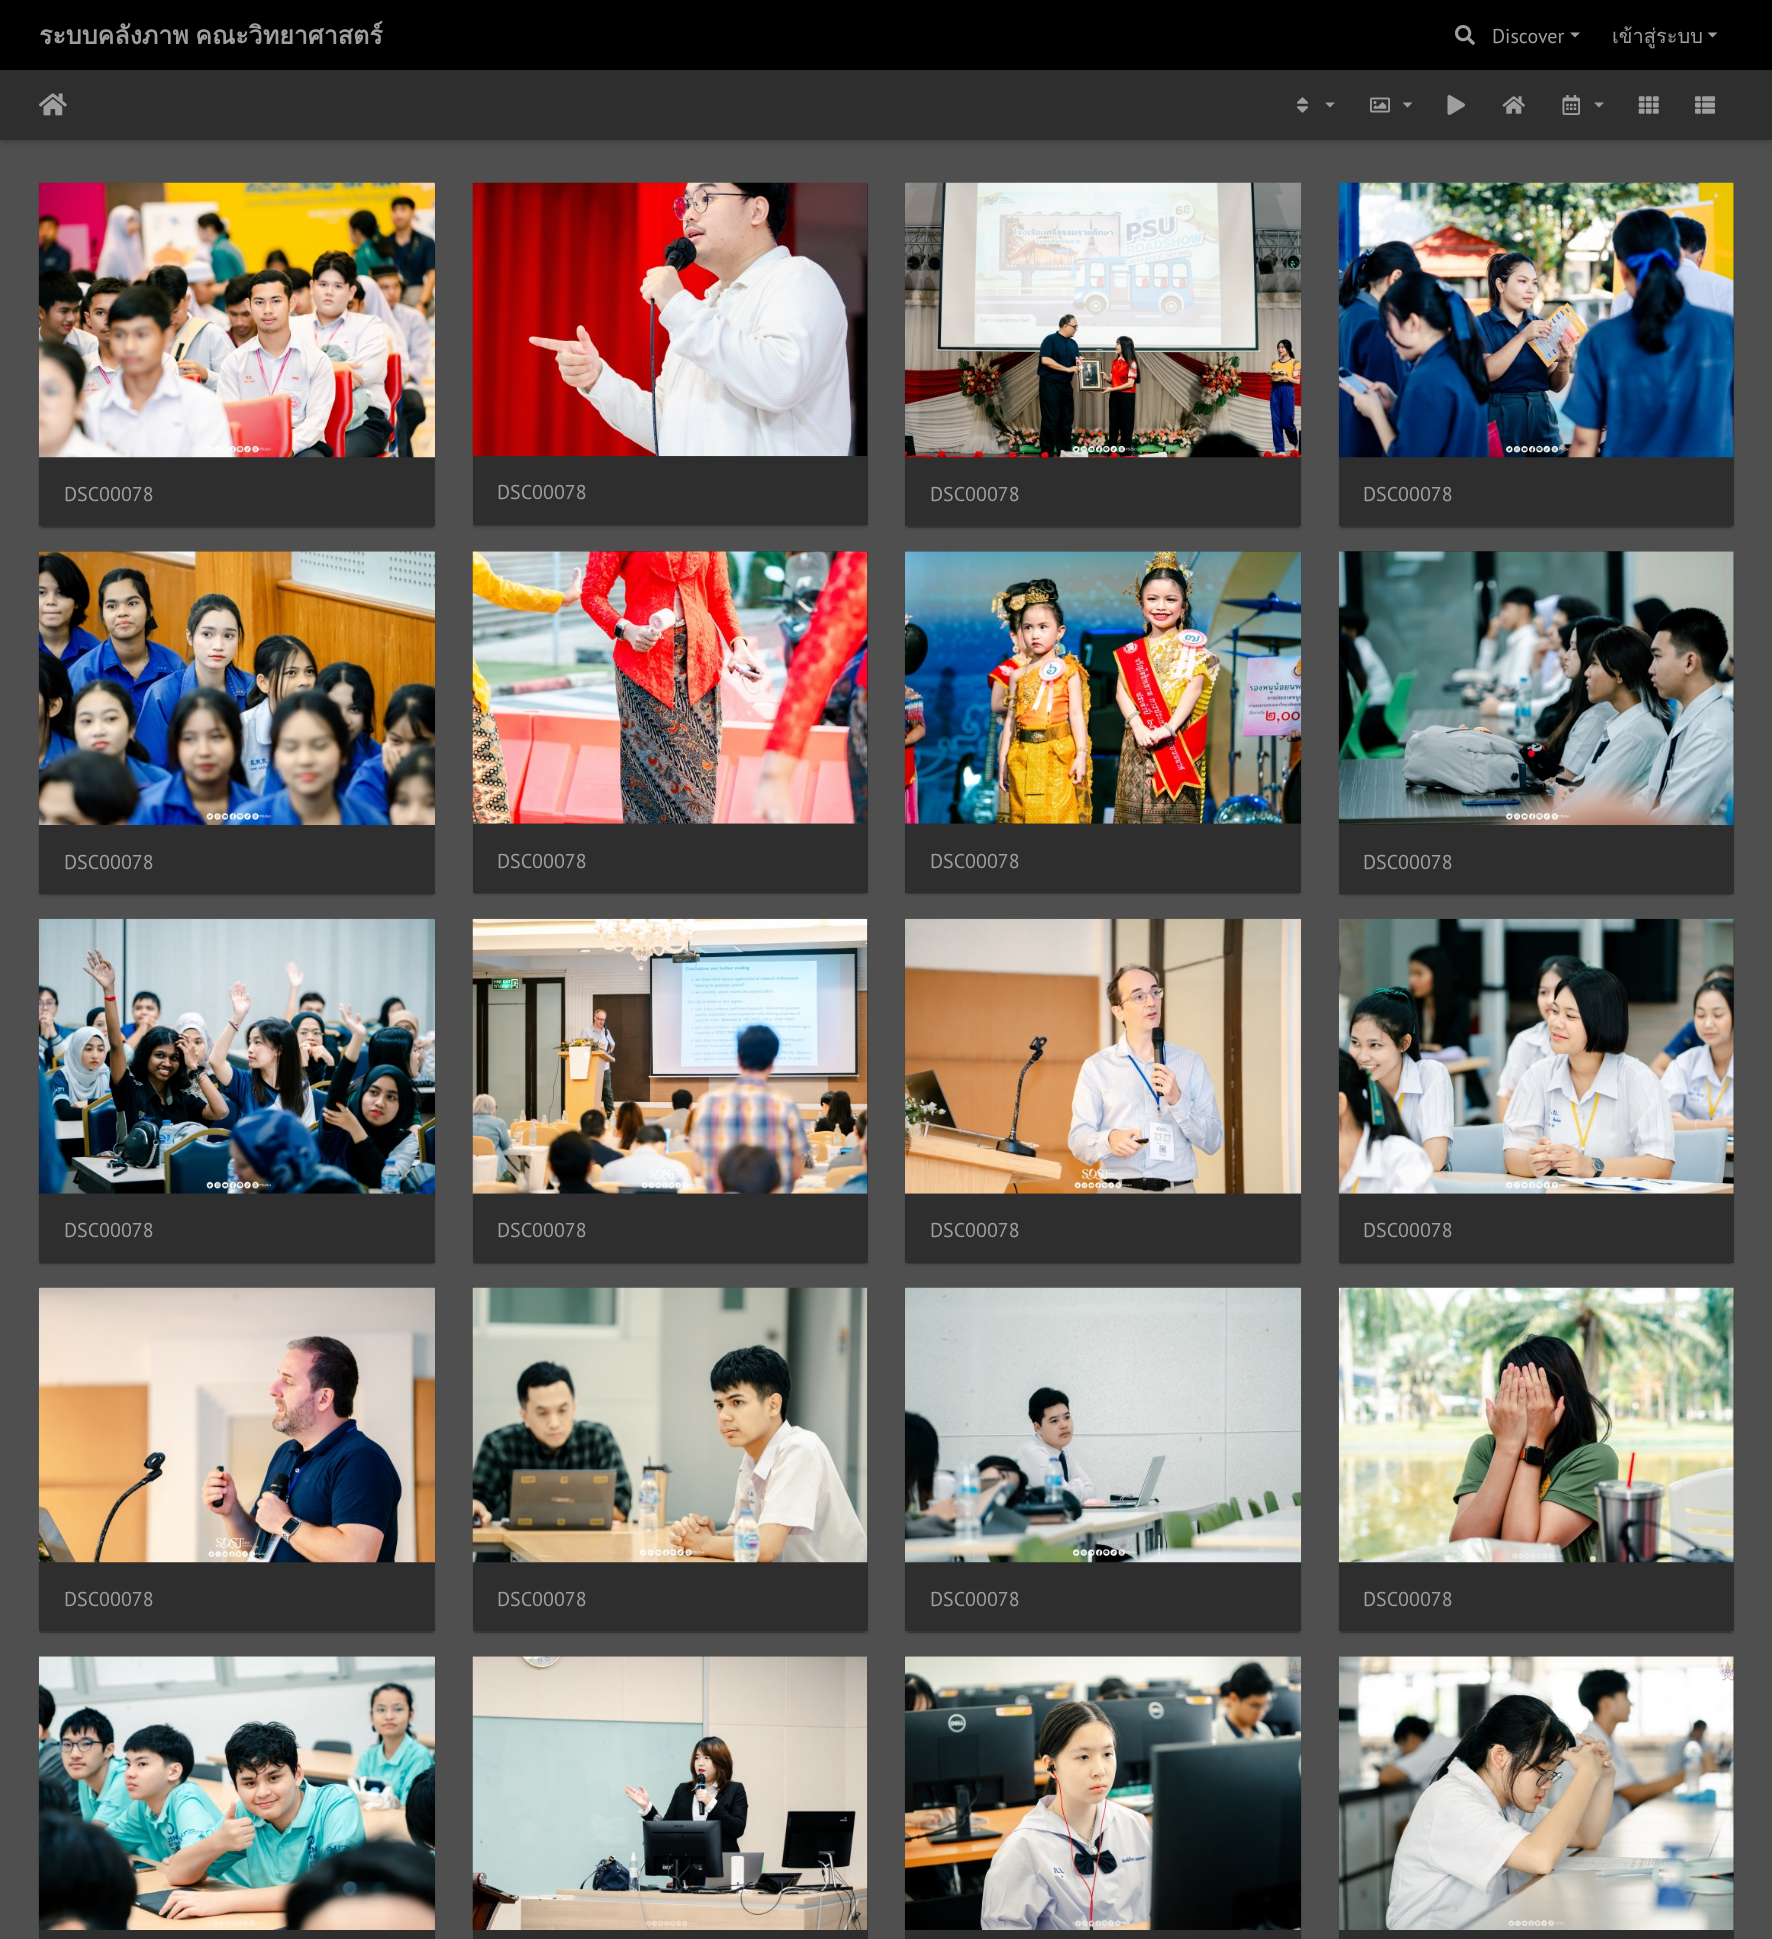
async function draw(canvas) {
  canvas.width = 1772
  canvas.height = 1939
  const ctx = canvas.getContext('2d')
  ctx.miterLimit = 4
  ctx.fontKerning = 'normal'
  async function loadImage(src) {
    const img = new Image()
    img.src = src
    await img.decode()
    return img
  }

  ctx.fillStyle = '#4f4f4f'
  ctx.fillRect(0, 0, 1772, 1939)
  ctx.fillStyle = '#00000033'
  ctx.filter = 'blur(3px)'
  ctx.beginPath()
  ctx.rect(1, 75, 1770, 68)
  ctx.fill()
  ctx.filter = 'none'
  ctx.fillStyle = '#000'
  ctx.fillRect(0, 0, 1772, 70)
  ctx.wordSpacing = '-2px'
  ctx.font = 'bold 25px Loma'
  ctx.fillStyle = '#9e9e9e'
  ctx.fillText('ระบบคลังภาพ คณะวิทยาศาสตร์', 39, 44)
  ctx.drawImage(await loadImage('image0.png'), 1455, 25, 20, 20)
  ctx.wordSpacing = '0px'
  ctx.font = '20px PT Sans'
  ctx.fillText('Discover', 1492, 43)
  ctx.beginPath()
  ctx.moveTo(1570, 32.5)
  ctx.lineTo(1580, 32.5)
  ctx.lineTo(1575, 37.5)
  ctx.closePath()
  ctx.fill()
  ctx.font = '20px Loma'
  ctx.fillText('เข้าสู่ระบบ', 1612, 43)
  ctx.beginPath()
  ctx.moveTo(1707.5, 32.5)
  ctx.lineTo(1717.5, 32.5)
  ctx.lineTo(1712.5, 37.5)
  ctx.closePath()
  ctx.fill()
  ctx.fillStyle = '#2e2e2e'
  ctx.fillRect(0, 70, 1772, 70)
  ctx.drawImage(await loadImage('image1.png'), 39, 93, 28, 23)
  ctx.drawImage(await loadImage('image2.png'), 1297, 97, 11, 16)
  ctx.fillStyle = '#9e9e9e'
  ctx.beginPath()
  ctx.moveTo(1325, 102.5)
  ctx.lineTo(1335, 102.5)
  ctx.lineTo(1330, 107.5)
  ctx.closePath()
  ctx.fill()
  ctx.drawImage(await loadImage('image3.png'), 1370, 97, 20, 16)
  ctx.beginPath()
  ctx.moveTo(1402.5, 102.5)
  ctx.lineTo(1412.5, 102.5)
  ctx.lineTo(1407.5, 107.5)
  ctx.closePath()
  ctx.fill()
  ctx.drawImage(await loadImage('image4.png'), 1447, 95, 18, 20)
  ctx.drawImage(await loadImage('image5.png'), 1502, 96, 23, 18)
  ctx.drawImage(await loadImage('image6.png'), 1562, 95, 18, 20)
  ctx.beginPath()
  ctx.moveTo(1594, 102.5)
  ctx.lineTo(1604, 102.5)
  ctx.lineTo(1599, 107.5)
  ctx.closePath()
  ctx.fill()
  ctx.drawImage(await loadImage('image7.png'), 1638, 96, 21, 18)
  ctx.drawImage(await loadImage('image8.png'), 1695, 96, 20, 18)
  ctx.fillStyle = '#00000033'
  ctx.filter = 'blur(0.5px)'
  ctx.beginPath()
  ctx.rect(41, 189, 392, 339)
  ctx.fill()
  ctx.filter = 'none'
  ctx.fillStyle = '#00000024'
  ctx.filter = 'blur(1px)'
  ctx.beginPath()
  ctx.roundRect(39, 185, 396, 344, 2.5)
  ctx.fill()
  ctx.filter = 'none'
  ctx.fillStyle = '#2e2e2e'
  ctx.beginPath()
  ctx.roundRect(39, 183, 396, 343, 2.5)
  ctx.fill()
  ctx.drawImage(await loadImage('image9.png'), 38, 182, 397, 276)
  ctx.fillRect(39, 524, 396, 2)
  ctx.font = '20px PT Sans'
  ctx.fillStyle = '#9e9e9e'
  ctx.fillText('DSC00078', 64, 501)
  ctx.fillStyle = '#00000033'
  ctx.filter = 'blur(0.5px)'
  ctx.beginPath()
  ctx.rect(475, 189, 390, 337)
  ctx.fill()
  ctx.filter = 'none'
  ctx.fillStyle = '#00000024'
  ctx.filter = 'blur(1px)'
  ctx.beginPath()
  ctx.roundRect(473, 185, 395, 343, 2.5)
  ctx.fill()
  ctx.filter = 'none'
  ctx.fillStyle = '#2e2e2e'
  ctx.beginPath()
  ctx.roundRect(473, 183, 395, 342, 2.5)
  ctx.fill()
  ctx.drawImage(await loadImage('image10.png'), 472, 182, 396, 275)
  ctx.fillRect(473, 523, 395, 2)
  ctx.fillStyle = '#9e9e9e'
  ctx.fillText('DSC00078', 497, 499)
  ctx.fillStyle = '#00000033'
  ctx.filter = 'blur(0.5px)'
  ctx.beginPath()
  ctx.rect(908, 189, 391, 339)
  ctx.fill()
  ctx.filter = 'none'
  ctx.fillStyle = '#00000024'
  ctx.filter = 'blur(1px)'
  ctx.beginPath()
  ctx.roundRect(905, 185, 396, 344, 2.5)
  ctx.fill()
  ctx.filter = 'none'
  ctx.fillStyle = '#2e2e2e'
  ctx.beginPath()
  ctx.roundRect(905, 183, 396, 343, 2.5)
  ctx.fill()
  ctx.drawImage(await loadImage('image11.png'), 905, 182, 397, 276)
  ctx.fillRect(905, 524, 396, 2)
  ctx.fillStyle = '#9e9e9e'
  ctx.fillText('DSC00078', 930, 501)
  ctx.fillStyle = '#00000033'
  ctx.filter = 'blur(0.5px)'
  ctx.beginPath()
  ctx.rect(1341, 189, 390, 339)
  ctx.fill()
  ctx.filter = 'none'
  ctx.fillStyle = '#00000024'
  ctx.filter = 'blur(1px)'
  ctx.beginPath()
  ctx.roundRect(1339, 185, 395, 344, 2.5)
  ctx.fill()
  ctx.filter = 'none'
  ctx.fillStyle = '#2e2e2e'
  ctx.beginPath()
  ctx.roundRect(1339, 183, 395, 343, 2.5)
  ctx.fill()
  ctx.drawImage(await loadImage('image12.png'), 1338, 182, 396, 276)
  ctx.fillRect(1339, 524, 395, 2)
  ctx.fillStyle = '#9e9e9e'
  ctx.fillText('DSC00078', 1363, 501)
  ctx.fillStyle = '#00000033'
  ctx.filter = 'blur(0.5px)'
  ctx.beginPath()
  ctx.rect(41, 558, 392, 337)
  ctx.fill()
  ctx.filter = 'none'
  ctx.fillStyle = '#00000024'
  ctx.filter = 'blur(1px)'
  ctx.beginPath()
  ctx.roundRect(39, 554, 396, 342, 2.5)
  ctx.fill()
  ctx.filter = 'none'
  ctx.fillStyle = '#2e2e2e'
  ctx.beginPath()
  ctx.roundRect(39, 551, 396, 343, 2.5)
  ctx.fill()
  ctx.drawImage(await loadImage('image13.png'), 38, 551, 397, 274)
  ctx.fillRect(39, 892, 396, 2)
  ctx.fillStyle = '#9e9e9e'
  ctx.fillText('DSC00078', 64, 869)
  ctx.fillStyle = '#00000033'
  ctx.filter = 'blur(0.5px)'
  ctx.beginPath()
  ctx.rect(475, 558, 390, 336)
  ctx.fill()
  ctx.filter = 'none'
  ctx.fillStyle = '#00000024'
  ctx.filter = 'blur(1px)'
  ctx.beginPath()
  ctx.roundRect(473, 554, 395, 341, 2.5)
  ctx.fill()
  ctx.filter = 'none'
  ctx.fillStyle = '#2e2e2e'
  ctx.beginPath()
  ctx.roundRect(473, 551, 395, 342, 2.5)
  ctx.fill()
  ctx.drawImage(await loadImage('image14.png'), 472, 551, 396, 273)
  ctx.fillRect(473, 891, 395, 2)
  ctx.fillStyle = '#9e9e9e'
  ctx.fillText('DSC00078', 497, 868)
  ctx.fillStyle = '#00000033'
  ctx.filter = 'blur(0.5px)'
  ctx.beginPath()
  ctx.rect(908, 558, 391, 336)
  ctx.fill()
  ctx.filter = 'none'
  ctx.fillStyle = '#00000024'
  ctx.filter = 'blur(1px)'
  ctx.beginPath()
  ctx.roundRect(905, 554, 396, 341, 2.5)
  ctx.fill()
  ctx.filter = 'none'
  ctx.fillStyle = '#2e2e2e'
  ctx.beginPath()
  ctx.roundRect(905, 551, 396, 342, 2.5)
  ctx.fill()
  ctx.drawImage(await loadImage('image15.png'), 905, 551, 397, 273)
  ctx.fillRect(905, 891, 396, 2)
  ctx.fillStyle = '#9e9e9e'
  ctx.fillText('DSC00078', 930, 868)
  ctx.fillStyle = '#00000033'
  ctx.filter = 'blur(0.5px)'
  ctx.beginPath()
  ctx.rect(1341, 558, 390, 337)
  ctx.fill()
  ctx.filter = 'none'
  ctx.fillStyle = '#00000024'
  ctx.filter = 'blur(1px)'
  ctx.beginPath()
  ctx.roundRect(1339, 554, 395, 342, 2.5)
  ctx.fill()
  ctx.filter = 'none'
  ctx.fillStyle = '#2e2e2e'
  ctx.beginPath()
  ctx.roundRect(1339, 551, 395, 343, 2.5)
  ctx.fill()
  ctx.drawImage(await loadImage('image16.png'), 1338, 551, 396, 274)
  ctx.fillRect(1339, 892, 395, 2)
  ctx.fillStyle = '#9e9e9e'
  ctx.fillText('DSC00078', 1363, 869)
  ctx.fillStyle = '#00000033'
  ctx.filter = 'blur(0.5px)'
  ctx.beginPath()
  ctx.rect(41, 925, 392, 339)
  ctx.fill()
  ctx.filter = 'none'
  ctx.fillStyle = '#00000024'
  ctx.filter = 'blur(1px)'
  ctx.beginPath()
  ctx.roundRect(39, 921, 396, 344, 2.5)
  ctx.fill()
  ctx.filter = 'none'
  ctx.fillStyle = '#2e2e2e'
  ctx.beginPath()
  ctx.roundRect(39, 919, 396, 344, 2.5)
  ctx.fill()
  ctx.drawImage(await loadImage('image17.png'), 38, 918, 397, 276)
  ctx.fillRect(39, 1261, 396, 2)
  ctx.fillStyle = '#9e9e9e'
  ctx.fillText('DSC00078', 64, 1237)
  ctx.fillStyle = '#00000033'
  ctx.filter = 'blur(0.5px)'
  ctx.beginPath()
  ctx.rect(475, 925, 390, 339)
  ctx.fill()
  ctx.filter = 'none'
  ctx.fillStyle = '#00000024'
  ctx.filter = 'blur(1px)'
  ctx.beginPath()
  ctx.roundRect(473, 921, 395, 344, 2.5)
  ctx.fill()
  ctx.filter = 'none'
  ctx.fillStyle = '#2e2e2e'
  ctx.beginPath()
  ctx.roundRect(473, 919, 395, 344, 2.5)
  ctx.fill()
  ctx.drawImage(await loadImage('image18.png'), 472, 918, 396, 276)
  ctx.fillRect(473, 1261, 395, 2)
  ctx.fillStyle = '#9e9e9e'
  ctx.fillText('DSC00078', 497, 1237)
  ctx.fillStyle = '#00000033'
  ctx.filter = 'blur(0.5px)'
  ctx.beginPath()
  ctx.rect(908, 925, 391, 339)
  ctx.fill()
  ctx.filter = 'none'
  ctx.fillStyle = '#00000024'
  ctx.filter = 'blur(1px)'
  ctx.beginPath()
  ctx.roundRect(905, 921, 396, 344, 2.5)
  ctx.fill()
  ctx.filter = 'none'
  ctx.fillStyle = '#2e2e2e'
  ctx.beginPath()
  ctx.roundRect(905, 919, 396, 344, 2.5)
  ctx.fill()
  ctx.drawImage(await loadImage('image19.png'), 905, 918, 397, 276)
  ctx.fillRect(905, 1261, 396, 2)
  ctx.fillStyle = '#9e9e9e'
  ctx.fillText('DSC00078', 930, 1237)
  ctx.fillStyle = '#00000033'
  ctx.filter = 'blur(0.5px)'
  ctx.beginPath()
  ctx.rect(1341, 925, 390, 339)
  ctx.fill()
  ctx.filter = 'none'
  ctx.fillStyle = '#00000024'
  ctx.filter = 'blur(1px)'
  ctx.beginPath()
  ctx.roundRect(1339, 921, 395, 344, 2.5)
  ctx.fill()
  ctx.filter = 'none'
  ctx.fillStyle = '#2e2e2e'
  ctx.beginPath()
  ctx.roundRect(1339, 919, 395, 344, 2.5)
  ctx.fill()
  ctx.drawImage(await loadImage('image20.png'), 1338, 918, 396, 276)
  ctx.fillRect(1339, 1261, 395, 2)
  ctx.fillStyle = '#9e9e9e'
  ctx.fillText('DSC00078', 1363, 1237)
  ctx.fillStyle = '#00000033'
  ctx.filter = 'blur(0.5px)'
  ctx.beginPath()
  ctx.rect(41, 1294, 392, 339)
  ctx.fill()
  ctx.filter = 'none'
  ctx.fillStyle = '#00000024'
  ctx.filter = 'blur(1px)'
  ctx.beginPath()
  ctx.roundRect(39, 1290, 396, 344, 2.5)
  ctx.fill()
  ctx.filter = 'none'
  ctx.fillStyle = '#2e2e2e'
  ctx.beginPath()
  ctx.roundRect(39, 1288, 396, 343, 2.5)
  ctx.fill()
  ctx.drawImage(await loadImage('image21.png'), 38, 1287, 397, 276)
  ctx.fillRect(39, 1629, 396, 2)
  ctx.fillStyle = '#9e9e9e'
  ctx.fillText('DSC00078', 64, 1606)
  ctx.fillStyle = '#00000033'
  ctx.filter = 'blur(0.5px)'
  ctx.beginPath()
  ctx.rect(475, 1294, 390, 339)
  ctx.fill()
  ctx.filter = 'none'
  ctx.fillStyle = '#00000024'
  ctx.filter = 'blur(1px)'
  ctx.beginPath()
  ctx.roundRect(473, 1290, 395, 344, 2.5)
  ctx.fill()
  ctx.filter = 'none'
  ctx.fillStyle = '#2e2e2e'
  ctx.beginPath()
  ctx.roundRect(473, 1288, 395, 343, 2.5)
  ctx.fill()
  ctx.drawImage(await loadImage('image22.png'), 472, 1287, 396, 276)
  ctx.fillRect(473, 1629, 395, 2)
  ctx.fillStyle = '#9e9e9e'
  ctx.fillText('DSC00078', 497, 1606)
  ctx.fillStyle = '#00000033'
  ctx.filter = 'blur(0.5px)'
  ctx.beginPath()
  ctx.rect(908, 1294, 391, 339)
  ctx.fill()
  ctx.filter = 'none'
  ctx.fillStyle = '#00000024'
  ctx.filter = 'blur(1px)'
  ctx.beginPath()
  ctx.roundRect(905, 1290, 396, 344, 2.5)
  ctx.fill()
  ctx.filter = 'none'
  ctx.fillStyle = '#2e2e2e'
  ctx.beginPath()
  ctx.roundRect(905, 1288, 396, 343, 2.5)
  ctx.fill()
  ctx.drawImage(await loadImage('image23.png'), 905, 1287, 397, 276)
  ctx.fillRect(905, 1629, 396, 2)
  ctx.fillStyle = '#9e9e9e'
  ctx.fillText('DSC00078', 930, 1606)
  ctx.fillStyle = '#00000033'
  ctx.filter = 'blur(0.5px)'
  ctx.beginPath()
  ctx.rect(1341, 1294, 390, 339)
  ctx.fill()
  ctx.filter = 'none'
  ctx.fillStyle = '#00000024'
  ctx.filter = 'blur(1px)'
  ctx.beginPath()
  ctx.roundRect(1339, 1290, 395, 344, 2.5)
  ctx.fill()
  ctx.filter = 'none'
  ctx.fillStyle = '#2e2e2e'
  ctx.beginPath()
  ctx.roundRect(1339, 1288, 395, 343, 2.5)
  ctx.fill()
  ctx.drawImage(await loadImage('image24.png'), 1338, 1287, 396, 276)
  ctx.fillRect(1339, 1629, 395, 2)
  ctx.fillStyle = '#9e9e9e'
  ctx.fillText('DSC00078', 1363, 1606)
  ctx.fillStyle = '#00000024'
  ctx.filter = 'blur(1px)'
  ctx.beginPath()
  ctx.roundRect(39, 1659, 396, 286, 2.5)
  ctx.fill()
  ctx.filter = 'none'
  ctx.fillStyle = '#2e2e2e'
  ctx.beginPath()
  ctx.roundRect(39, 1656, 396, 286, 2.5)
  ctx.fill()
  ctx.drawImage(await loadImage('image25.png'), 38, 1656, 397, 274)
  ctx.fillStyle = '#00000024'
  ctx.filter = 'blur(1px)'
  ctx.beginPath()
  ctx.roundRect(473, 1659, 395, 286, 2.5)
  ctx.fill()
  ctx.filter = 'none'
  ctx.fillStyle = '#2e2e2e'
  ctx.beginPath()
  ctx.roundRect(473, 1656, 395, 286, 2.5)
  ctx.fill()
  ctx.drawImage(await loadImage('image26.png'), 472, 1656, 396, 274)
  ctx.fillStyle = '#00000024'
  ctx.filter = 'blur(1px)'
  ctx.beginPath()
  ctx.roundRect(905, 1659, 396, 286, 2.5)
  ctx.fill()
  ctx.filter = 'none'
  ctx.fillStyle = '#2e2e2e'
  ctx.beginPath()
  ctx.roundRect(905, 1656, 396, 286, 2.5)
  ctx.fill()
  ctx.drawImage(await loadImage('image27.png'), 905, 1656, 397, 274)
  ctx.fillStyle = '#00000024'
  ctx.filter = 'blur(1px)'
  ctx.beginPath()
  ctx.roundRect(1339, 1659, 395, 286, 2.5)
  ctx.fill()
  ctx.filter = 'none'
  ctx.fillStyle = '#2e2e2e'
  ctx.beginPath()
  ctx.roundRect(1339, 1656, 395, 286, 2.5)
  ctx.fill()
  ctx.drawImage(await loadImage('image28.png'), 1338, 1656, 396, 274)
}

draw(document.querySelector('canvas'))
